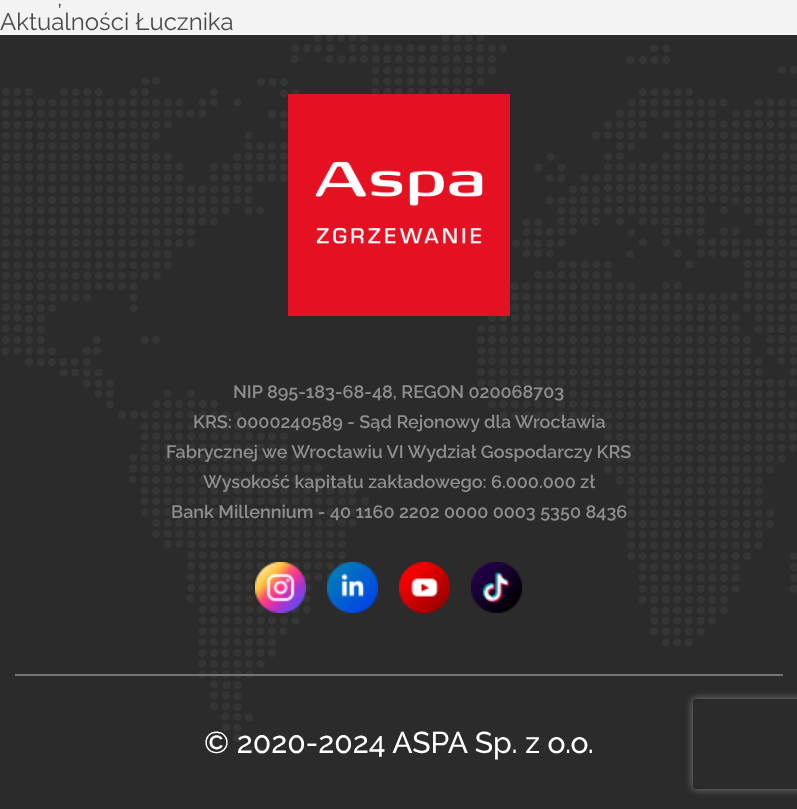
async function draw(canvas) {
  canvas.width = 797
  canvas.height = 809
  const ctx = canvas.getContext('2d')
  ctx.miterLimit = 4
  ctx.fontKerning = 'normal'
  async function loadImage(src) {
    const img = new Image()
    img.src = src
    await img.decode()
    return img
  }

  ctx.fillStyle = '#f3f3f3'
  ctx.fillRect(0, 0, 797, 809)
  ctx.font = '24px Raleway'
  ctx.fillStyle = '#494949'
  ctx.fillText(',', 57, 6)
  ctx.fillText('Aktualności Łucznika', 0, 30)
  ctx.fillStyle = '#2b2b2b'
  ctx.fillRect(0, 35, 797, 774)
  ctx.drawImage(await loadImage('image0.png'), 2, 35, 795, 719)
  ctx.drawImage(await loadImage('image1.png'), 288, 94, 222, 222)
  ctx.font = '600 18px Raleway'
  ctx.fillStyle = '#8e8e8e'
  ctx.fillText('NIP 895-183-68-48, REGON 020068703', 233, 398)
  ctx.fillText('KRS: 0000240589 - Sąd Rejonowy dla Wrocławia', 193, 428)
  ctx.fillText('Fabrycznej we Wrocławiu VI Wydział Gospodarczy KRS', 166, 458)
  ctx.fillText('Wysokość kapitału zakładowego: 6.000.000 zł', 203, 488)
  ctx.fillText('Bank Millennium - 40 1160 2202 0000 0003 5350 8436', 171, 518)
  ctx.drawImage(await loadImage('image2.png'), 255, 562, 51, 51)
  ctx.drawImage(await loadImage('image3.png'), 327, 562, 51, 51)
  ctx.drawImage(await loadImage('image4.png'), 399, 562, 51, 51)
  ctx.drawImage(await loadImage('image5.png'), 471, 562, 51, 51)
  ctx.fillStyle = '#747474'
  ctx.fillRect(15, 674, 768, 2)
  ctx.font = '500 30px Raleway'
  ctx.fillStyle = '#fff'
  ctx.fillText('© 2020-2024 ASPA Sp. z o.o.', 204, 753)
  ctx.save()
  ctx.beginPath()
  ctx.moveTo(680, 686)
  ctx.lineTo(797, 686)
  ctx.lineTo(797, 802)
  ctx.lineTo(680, 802)
  ctx.closePath()
  ctx.moveTo(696, 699)
  ctx.lineTo(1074, 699)
  ctx.bezierCurveTo(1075.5, 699, 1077, 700.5, 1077, 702)
  ctx.lineTo(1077, 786)
  ctx.bezierCurveTo(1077, 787.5, 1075.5, 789, 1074, 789)
  ctx.lineTo(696, 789)
  ctx.bezierCurveTo(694.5, 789, 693, 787.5, 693, 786)
  ctx.lineTo(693, 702)
  ctx.bezierCurveTo(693, 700.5, 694.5, 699, 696, 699)
  ctx.closePath()
  ctx.clip('evenodd')
  ctx.fillStyle = '#808080'
  ctx.filter = 'blur(4px)'
  ctx.beginPath()
  ctx.roundRect(693, 699, 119, 90, 3)
  ctx.fill()
  ctx.filter = 'none'
  ctx.restore()
}

draw(document.querySelector('canvas'))
